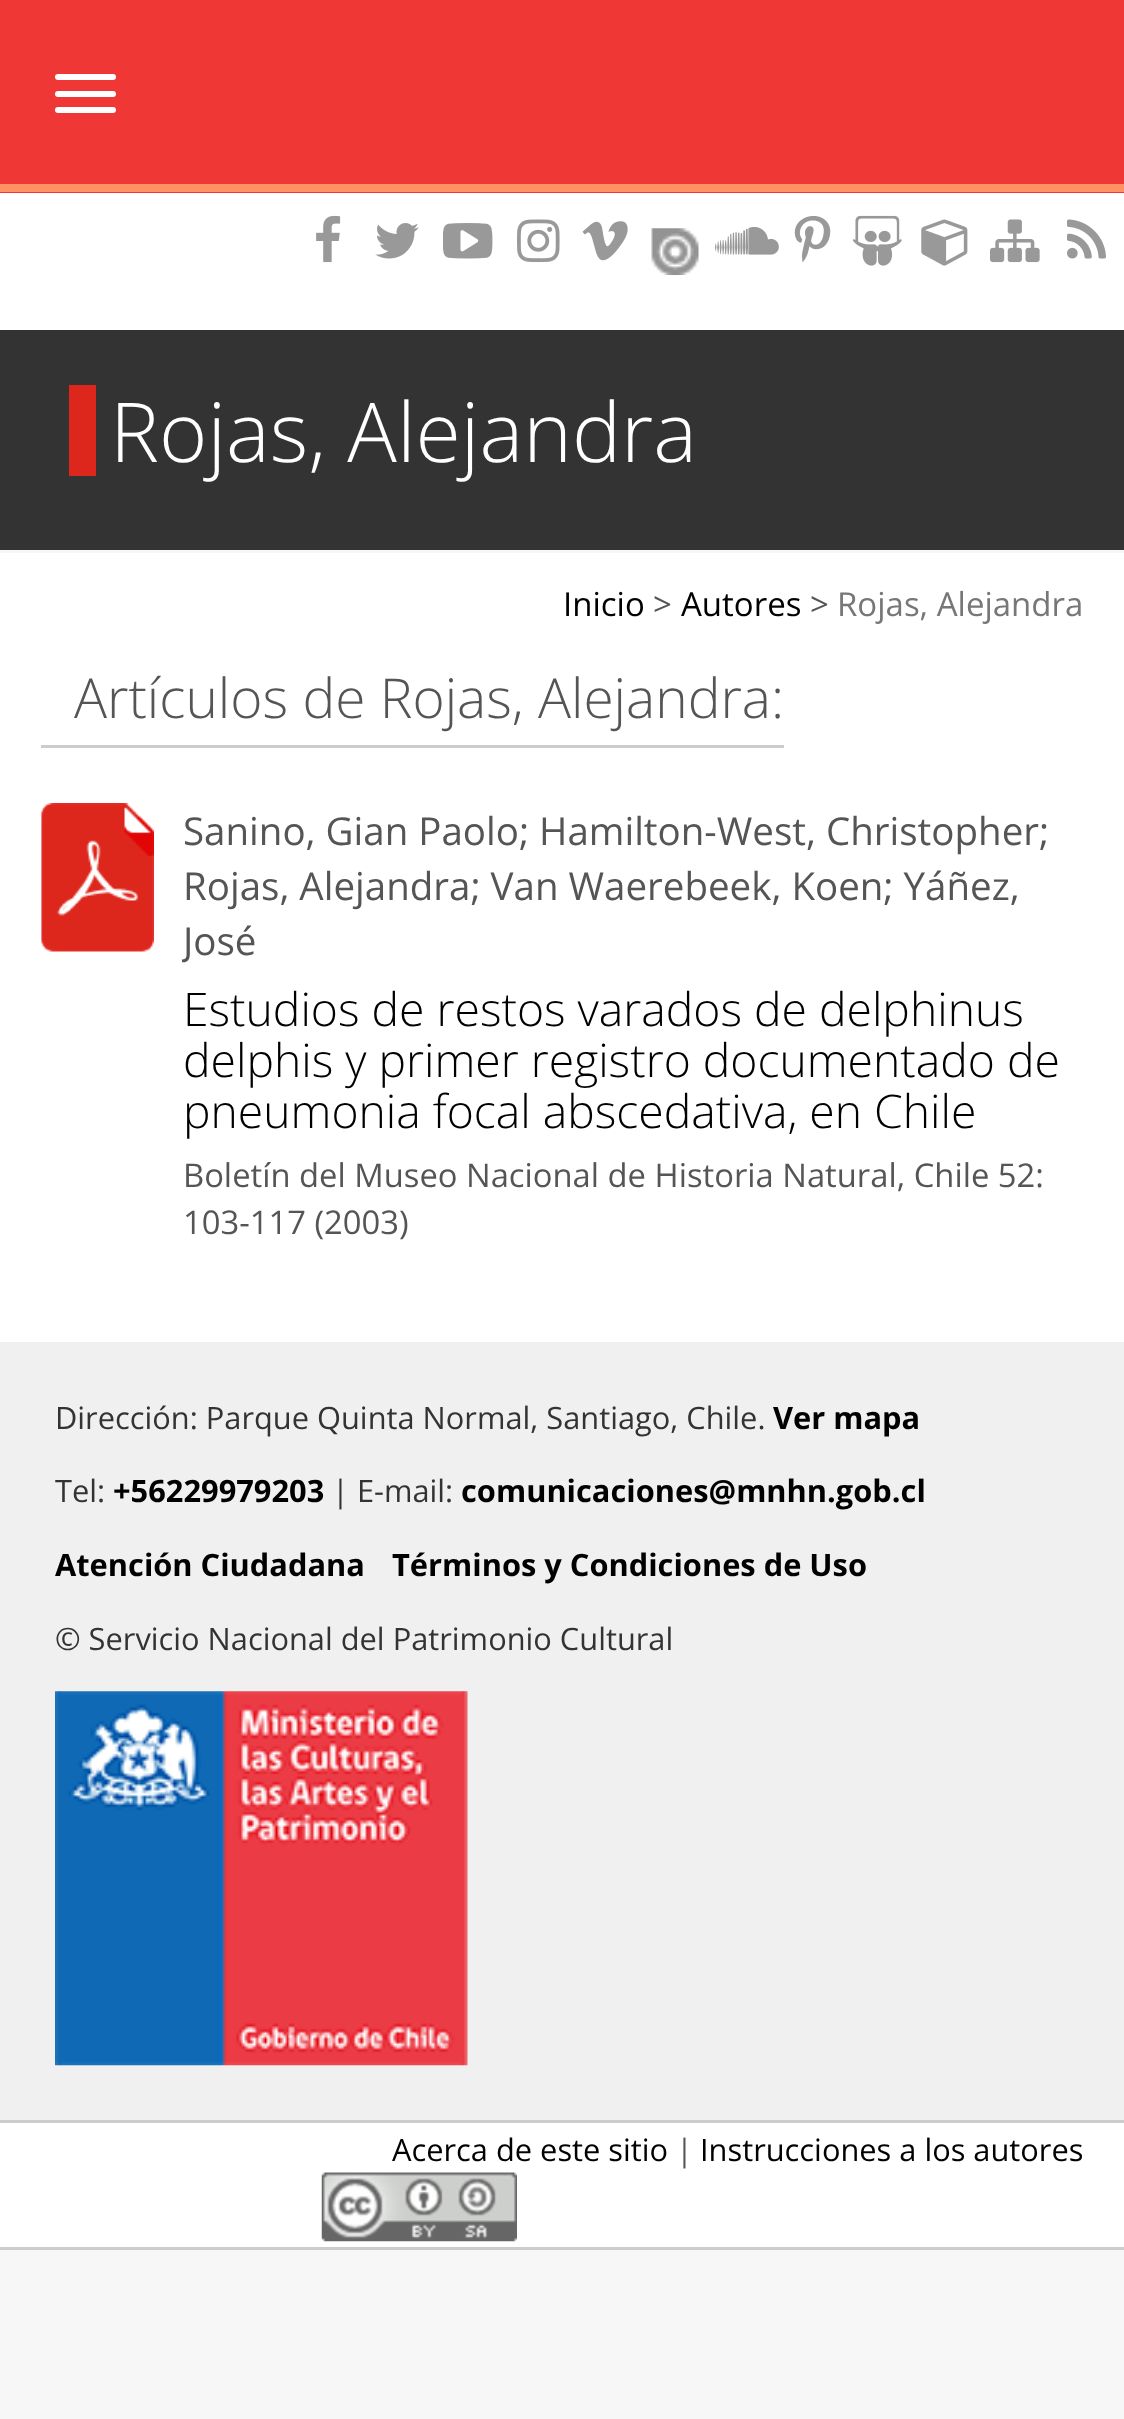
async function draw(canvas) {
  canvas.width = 1124
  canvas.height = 2419
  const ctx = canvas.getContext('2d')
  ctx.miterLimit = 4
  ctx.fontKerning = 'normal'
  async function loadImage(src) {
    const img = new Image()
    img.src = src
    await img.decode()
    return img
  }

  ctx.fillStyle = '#f7f7f7'
  ctx.fillRect(0, 0, 1124, 2419)
  ctx.fillStyle = '#fff'
  ctx.fillRect(0, 193, 1124, 137)
  ctx.fillStyle = '#ef3835'
  ctx.fillRect(0, 0, 1124, 193)
  ctx.fillStyle = '#ff9162'
  ctx.fillRect(0, 184, 1124, 8)
  ctx.drawImage(await loadImage('image0.png'), 316, 215, 25, 48)
  ctx.drawImage(await loadImage('image1.png'), 375, 223, 44, 36)
  ctx.drawImage(await loadImage('image2.png'), 443, 223, 50, 36)
  ctx.drawImage(await loadImage('image3.png'), 517, 219, 43, 44)
  ctx.drawImage(await loadImage('image4.png'), 582, 221, 46, 40)
  ctx.drawImage(await loadImage('image5.png'), 651, 228, 48, 47)
  ctx.drawImage(await loadImage('image6.png'), 715, 226, 64, 29)
  ctx.drawImage(await loadImage('image7.png'), 794, 215, 37, 47)
  ctx.drawImage(await loadImage('image8.png'), 853, 215, 49, 51)
  ctx.drawImage(await loadImage('image9.png'), 921, 219, 47, 47)
  ctx.drawImage(await loadImage('image10.png'), 990, 219, 50, 44)
  ctx.drawImage(await loadImage('image11.png'), 1067, 219, 39, 40)
  ctx.fillStyle = '#fff'
  ctx.beginPath()
  ctx.roundRect(55, 74, 61, 6, 3)
  ctx.fill()
  ctx.beginPath()
  ctx.roundRect(55, 91, 61, 6, 3)
  ctx.fill()
  ctx.beginPath()
  ctx.roundRect(55, 107, 61, 6, 3)
  ctx.fill()
  ctx.fillStyle = '#333'
  ctx.fillRect(0, 330, 1124, 220)
  ctx.fillStyle = '#dd271d'
  ctx.fillRect(69, 385, 27, 91)
  ctx.font = '300 82.5px Open Sans'
  ctx.fillStyle = '#fff'
  ctx.fillText('Rojas, Alejandra', 110, 462)
  ctx.fillRect(0, 553, 1124, 789)
  ctx.font = '33px Open Sans'
  ctx.fillStyle = '#000'
  ctx.fillText('Inicio', 563, 616)
  ctx.fillStyle = '#555'
  ctx.fillText('>', 653, 616)
  ctx.fillStyle = '#000'
  ctx.fillText('Autores', 681, 616)
  ctx.fillStyle = '#555'
  ctx.fillText('>', 810, 616)
  ctx.fillStyle = '#777'
  ctx.fillText('Rojas, Alejandra', 837, 616)
  ctx.fillStyle = '#ccc'
  ctx.fillRect(41, 745, 743, 3)
  ctx.font = '300 55px Open Sans'
  ctx.fillStyle = '#555'
  ctx.fillText('Artículos de Rojas, Alejandra:', 74, 718)
  ctx.drawImage(await loadImage('image12.png'), 41, 803, 113, 149)
  ctx.font = '38.5px Open Sans'
  ctx.fillText('Sanino, Gian Paolo; Hamilton-West, Christopher;', 183, 845)
  ctx.fillText('Rojas, Alejandra; Van Waerebeek, Koen; Yáñez,', 183, 900)
  ctx.save()
  ctx.beginPath()
  ctx.rect(182, 803, 902, 457)
  ctx.clip()
  ctx.fillText('José', 183, 955)
  ctx.restore()
  ctx.font = '300 46.25px Open Sans'
  ctx.fillStyle = '#000'
  ctx.fillText('Estudios de restos varados de delphinus', 183, 1026)
  ctx.fillText('delphis y primer registro documentado de', 183, 1077)
  ctx.fillText('pneumonia focal abscedativa, en Chile', 183, 1128)
  ctx.font = '32.75px Open Sans'
  ctx.fillStyle = '#555'
  ctx.fillText('Boletín del Museo Nacional de Historia Natural, Chile 52:', 183, 1187)
  ctx.fillText('103-117 (2003)', 183, 1234)
  ctx.fillStyle = '#f0f0f0'
  ctx.fillRect(0, 1342, 1124, 778)
  ctx.font = '30.8px Open Sans'
  ctx.fillStyle = '#333'
  ctx.fillText('Dirección: Parque Quinta Normal, Santiago, Chile.', 55, 1429)
  ctx.font = 'bold 30.8px Open Sans'
  ctx.fillStyle = '#000'
  ctx.fillText('Ver mapa', 773, 1429)
  ctx.font = '30.8px Open Sans'
  ctx.fillStyle = '#333'
  ctx.fillText('Tel:', 55, 1502)
  ctx.font = 'bold 30.8px Open Sans'
  ctx.fillStyle = '#000'
  ctx.fillText('+56229979203', 113, 1502)
  ctx.font = '30.8px Open Sans'
  ctx.fillStyle = '#333'
  ctx.fillText('| E-mail:', 332, 1502)
  ctx.font = 'bold 30.8px Open Sans'
  ctx.fillStyle = '#000'
  ctx.fillText('comunicaciones@mnhn.gob.cl', 461, 1502)
  ctx.fillText('Atención Ciudadana', 55, 1576)
  ctx.fillText('Términos y Condiciones de Uso', 392, 1576)
  ctx.font = '30.8px Open Sans'
  ctx.fillStyle = '#333'
  ctx.fillText('© Servicio Nacional del Patrimonio Cultural', 55, 1650)
  ctx.drawImage(await loadImage('image13.png'), 55, 1691, 413, 375)
  ctx.fillStyle = '#fff'
  ctx.fillRect(0, 2123, 1124, 124)
  ctx.fillStyle = '#ccc'
  ctx.fillRect(0, 2120, 1124, 3)
  ctx.fillRect(0, 2247, 1124, 3)
  ctx.fillStyle = '#000'
  ctx.fillText('Acerca de este sitio', 392, 2161)
  ctx.fillStyle = '#555'
  ctx.fillText('|', 676, 2161)
  ctx.fillStyle = '#000'
  ctx.fillText('Instrucciones a los autores', 700, 2161)
  ctx.drawImage(await loadImage('image14.png'), 321, 2172, 196, 70)
}

draw(document.querySelector('canvas'))
